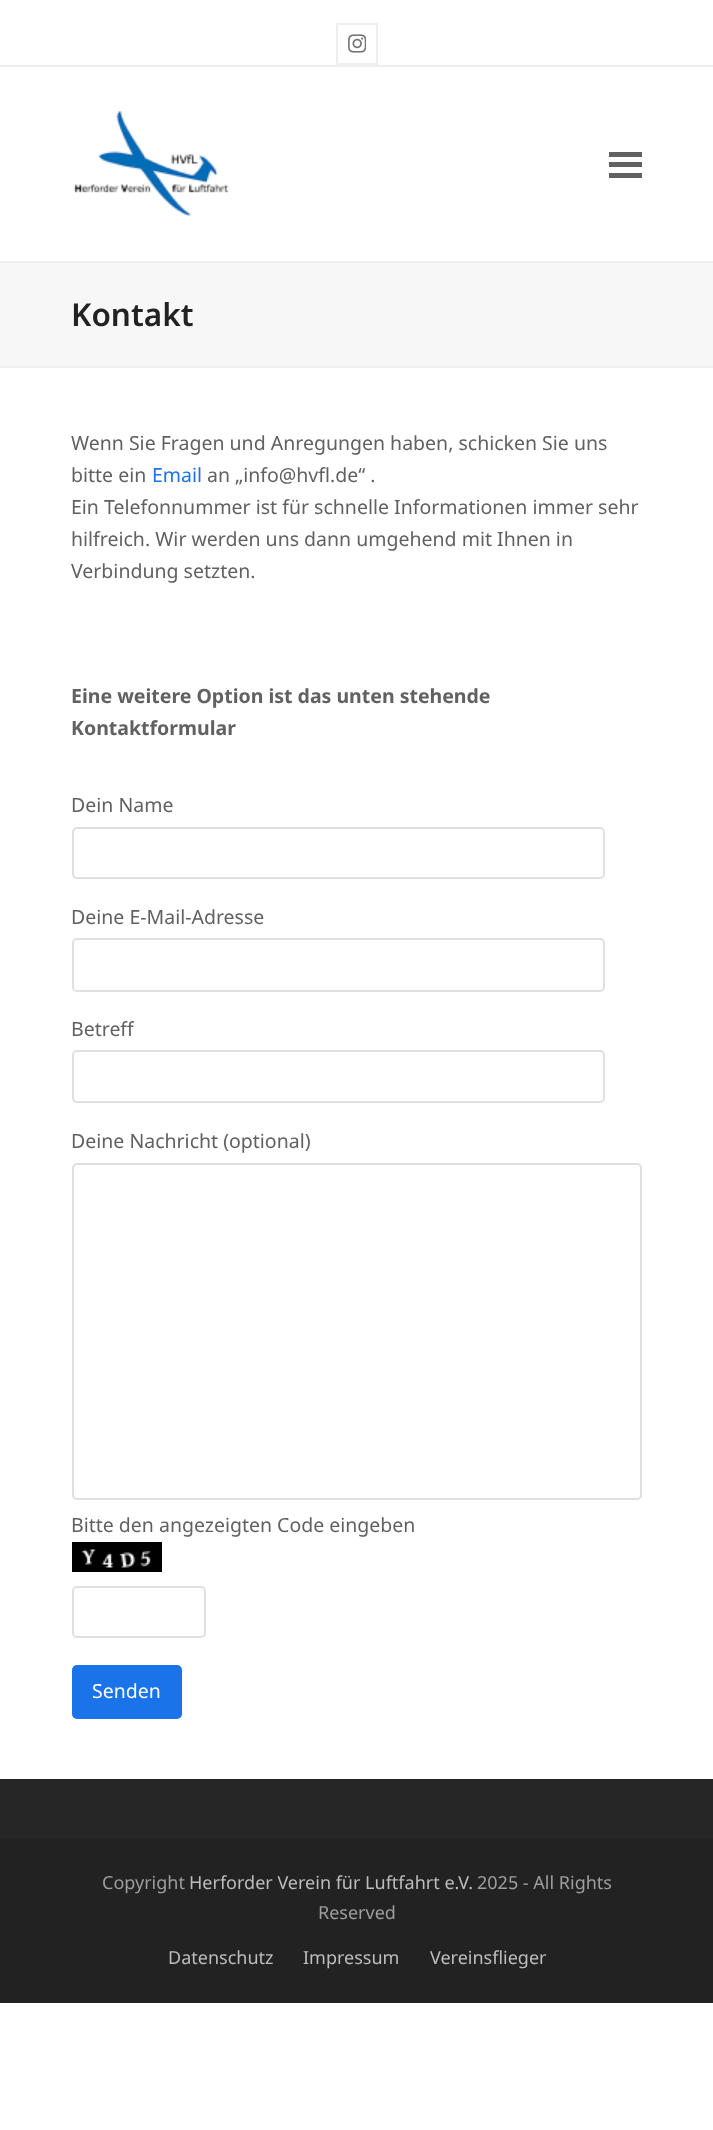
async function draw(canvas) {
  canvas.width = 713
  canvas.height = 2130
  const ctx = canvas.getContext('2d')
  ctx.miterLimit = 4
  ctx.fontKerning = 'normal'
  async function loadImage(src) {
    const img = new Image()
    img.src = src
    await img.decode()
    return img
  }

  ctx.fillStyle = '#fff'
  ctx.fillRect(0, 0, 713, 2130)
  ctx.fillStyle = '#eee'
  ctx.fillRect(0, 65, 713, 2)
  ctx.strokeStyle = '#eee'
  ctx.lineWidth = 2
  ctx.strokeRect(337, 24, 40, 40)
  ctx.drawImage(await loadImage('image0.png'), 348, 34, 18, 19)
  ctx.drawImage(await loadImage('image1.png'), 74, 111, 155, 105)
  ctx.fillStyle = '#616161'
  ctx.fillRect(609, 162, 33, 5)
  ctx.fillRect(609, 152, 33, 5)
  ctx.fillRect(609, 173, 33, 5)
  ctx.fillStyle = '#f7f7f7'
  ctx.fillRect(0, 263, 713, 103)
  ctx.fillStyle = '#eee'
  ctx.fillRect(0, 261, 713, 2)
  ctx.fillRect(0, 366, 713, 2)
  ctx.font = '600 31.5px Noto Sans'
  ctx.fillStyle = '#222'
  ctx.fillText('Kontakt', 71, 326)
  ctx.font = '19.5px Noto Sans'
  ctx.fillStyle = '#616161'
  ctx.fillText('Wenn Sie Fragen und Anregungen haben, schicken Sie uns', 71, 450)
  ctx.fillText('bitte ein', 71, 482)
  ctx.fillStyle = '#1a73e8'
  ctx.fillText('Email', 152, 482)
  ctx.fillStyle = '#616161'
  ctx.fillText('an „info@hvfl.de“ .', 207, 482)
  ctx.fillText('Ein Telefonnummer ist für schnelle Informationen immer sehr', 71, 514)
  ctx.fillText('hilfreich. Wir werden uns dann umgehend mit Ihnen in', 71, 546)
  ctx.fillText('Verbindung setzten.', 71, 578)
  ctx.font = 'bold 19.5px Noto Sans'
  ctx.fillText('Eine weitere Option ist das unten stehende', 71, 703)
  ctx.fillText('Kontaktformular', 71, 735)
  ctx.font = '19.5px Noto Sans'
  ctx.fillText('Dein Name', 71, 812)
  ctx.beginPath()
  ctx.roundRect(73, 828, 531, 50, 4)
  ctx.strokeStyle = '#e0e0e0'
  ctx.stroke()
  ctx.fillText('Deine E-Mail-Adresse', 71, 924)
  ctx.beginPath()
  ctx.roundRect(73, 939, 531, 52, 4)
  ctx.stroke()
  ctx.fillText('Betreff', 71, 1036)
  ctx.beginPath()
  ctx.roundRect(73, 1051, 531, 51, 4)
  ctx.stroke()
  ctx.fillText('Deine Nachricht (optional)', 71, 1148)
  ctx.beginPath()
  ctx.roundRect(73, 1164, 568, 335, 4)
  ctx.stroke()
  ctx.fillText('Bitte den angezeigten Code eingeben', 71, 1532)
  ctx.drawImage(await loadImage('image2.png'), 72, 1542, 90, 30)
  ctx.beginPath()
  ctx.roundRect(73, 1587, 132, 50, 4)
  ctx.stroke()
  ctx.fillStyle = '#1a73e8'
  ctx.beginPath()
  ctx.roundRect(72, 1665, 110, 54, 5)
  ctx.fill()
  ctx.fillStyle = '#fff'
  ctx.fillText('Senden', 92, 1698)
  ctx.fillStyle = '#262626'
  ctx.fillRect(0, 1779, 713, 60)
  ctx.fillStyle = '#222'
  ctx.fillRect(0, 1839, 713, 164)
  ctx.font = '18px Noto Sans'
  ctx.fillStyle = '#9e9e9e'
  ctx.fillText('Copyright', 102, 1889)
  ctx.fillStyle = '#bdbdbd'
  ctx.fillText('Herforder Verein für Luftfahrt e.V.', 189, 1889)
  ctx.fillStyle = '#9e9e9e'
  ctx.fillText('2025 - All Rights', 477, 1889)
  ctx.fillText('Reserved', 318, 1919)
  ctx.fillStyle = '#bdbdbd'
  ctx.fillText('Datenschutz', 168, 1964)
  ctx.fillText('Impressum', 303, 1964)
  ctx.fillText('Vereinsflieger', 430, 1964)
}

draw(document.querySelector('canvas'))
